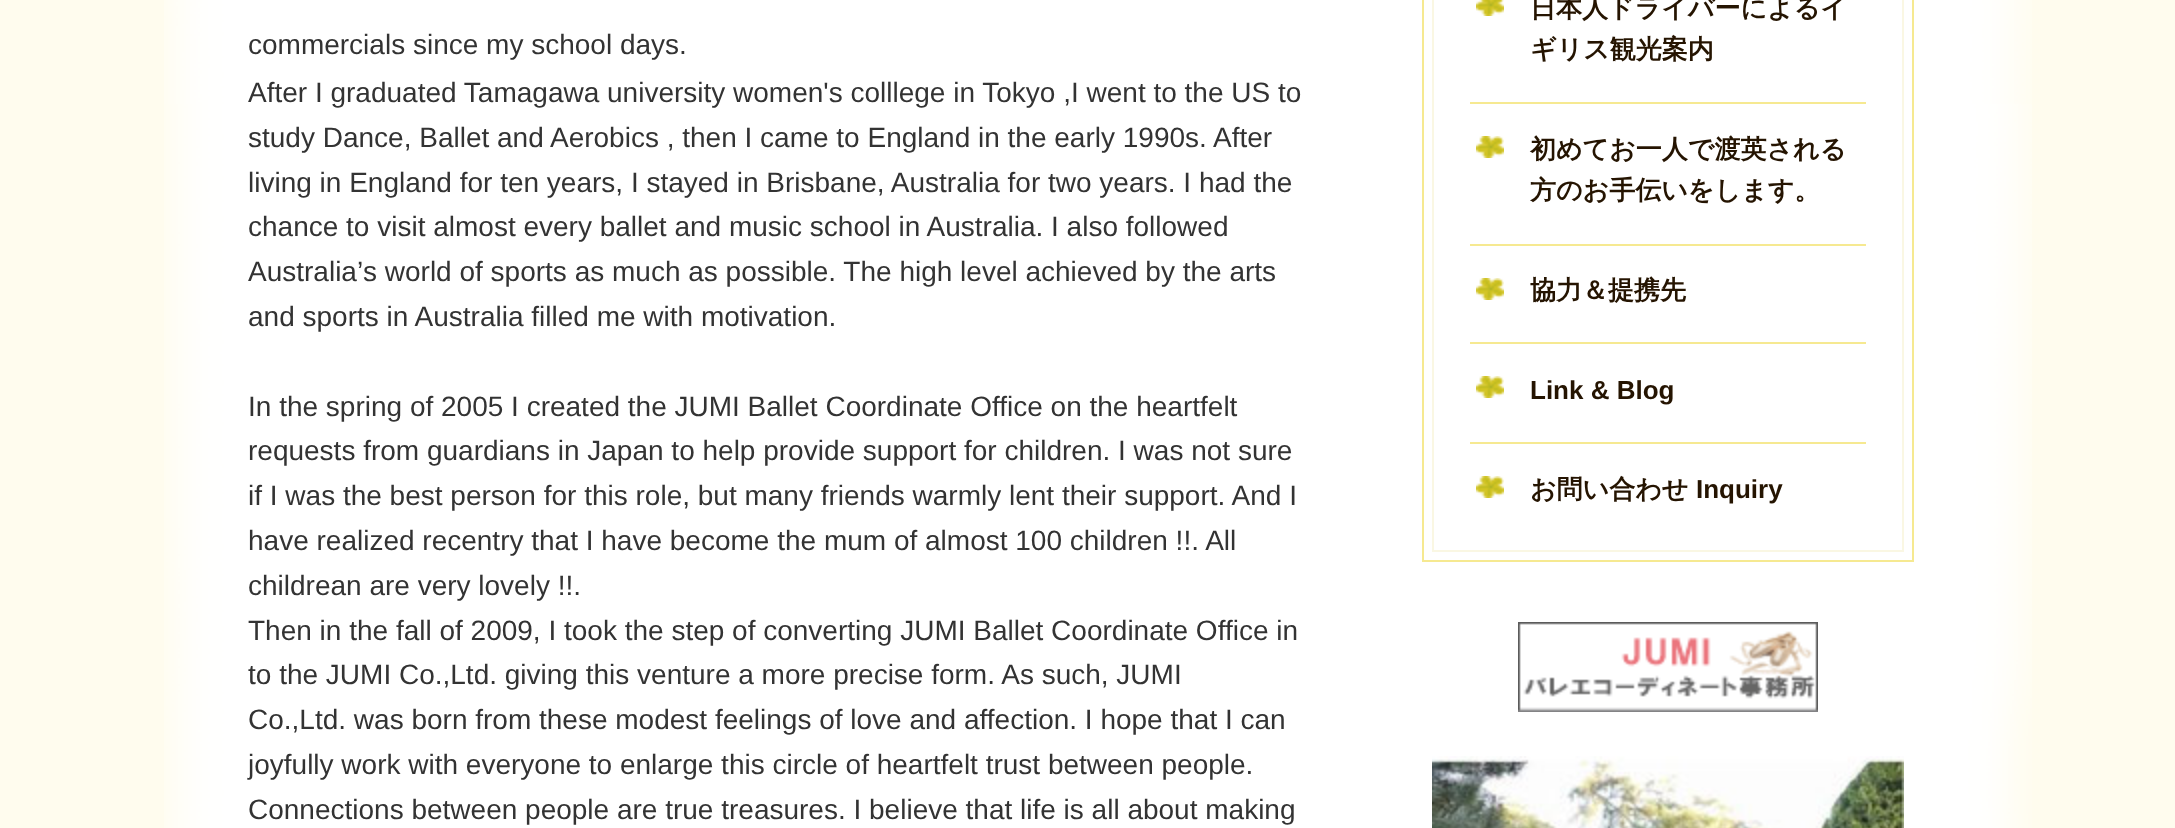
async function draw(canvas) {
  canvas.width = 2175
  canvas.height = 828
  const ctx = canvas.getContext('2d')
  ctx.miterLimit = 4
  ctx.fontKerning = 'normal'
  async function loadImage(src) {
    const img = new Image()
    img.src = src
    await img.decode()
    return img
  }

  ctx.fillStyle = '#fffcee'
  ctx.fillRect(0, 0, 2175, 828)
  ctx.drawImage(await loadImage('image0.png'), 164, 0, 1868, 828)
  ctx.font = '28px Liberation Sans'
  ctx.fillStyle = '#333'
  ctx.fillText('commercials since my school days.', 248, 54)
  ctx.fillText('After I graduated Tamagawa university women\'s colllege in Tokyo ,I went to the US to', 248, 102)
  ctx.fillText('study Dance, Ballet and Aerobics , then I came to England in the early 1990s. After', 248, 147)
  ctx.fillText('living in England for ten years, I stayed in Brisbane, Australia for two years. I had the', 248, 192)
  ctx.fillText('chance to visit almost every ballet and music school in Australia. I also followed', 248, 236)
  ctx.fillText('Australia’', 248, 281)
  ctx.fillText('s world of sports as much as possible. The high level achieved by the arts', 363, 281)
  ctx.fillText('and sports in Australia filled me with motivation.', 248, 326)
  ctx.fillText('In the spring of 2005 I created the JUMI Ballet Coordinate Office on the heartfelt', 248, 416)
  ctx.fillText('requests from guardians in Japan to help provide support for children. I was not sure', 248, 460)
  ctx.fillText('if I was the best person for this role, but many friends warmly lent their support. And I', 248, 505)
  ctx.fillText('have realized recentry that I have become the mum of almost 100 children !!. All', 248, 550)
  ctx.fillText('childrean are very lovely !!.', 248, 595)
  ctx.fillText('Then in the fall of 2009, I took the step of converting JUMI Ballet Coordinate Office in', 248, 640)
  ctx.fillText('to the JUMI Co.,Ltd. giving this venture a more precise form. As such, JUMI', 248, 684)
  ctx.fillText('Co.,Ltd. was born from these modest feelings of love and affection. I hope that I can', 248, 729)
  ctx.fillText('joyfully work with everyone to enlarge this circle of heartfelt trust between people.', 248, 774)
  ctx.fillText('Connections between people are true treasures. I believe that life is all about making', 248, 819)
  ctx.strokeStyle = '#f6e991'
  ctx.lineWidth = 2
  ctx.strokeRect(1423, -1, 490, 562)
  ctx.strokeStyle = '#faf7e3'
  ctx.strokeRect(1433, -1, 470, 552)
  ctx.drawImage(await loadImage('image1.png'), 1476, 0, 28, 16)
  ctx.fillStyle = '#f6e991'
  ctx.fillRect(1470, 102, 396, 2)
  ctx.font = 'bold 26px WenQuanYi Zen Hei'
  ctx.fillStyle = '#251401'
  ctx.fillText('日本人ドライバーによるイ', 1530, 17)
  ctx.fillText('ギリス観光案内', 1530, 58)
  ctx.drawImage(await loadImage('image2.png'), 1476, 136, 28, 22)
  ctx.fillStyle = '#f6e991'
  ctx.fillRect(1470, 244, 396, 2)
  ctx.fillStyle = '#251401'
  ctx.fillText('初めてお一人で渡英される', 1530, 158)
  ctx.fillText('方のお手伝いをします。', 1530, 199)
  ctx.drawImage(await loadImage('image2.png'), 1476, 278, 28, 22)
  ctx.fillStyle = '#f6e991'
  ctx.fillRect(1470, 342, 396, 2)
  ctx.fillStyle = '#251401'
  ctx.fillText('協力＆提携先', 1530, 299)
  ctx.drawImage(await loadImage('image2.png'), 1476, 376, 28, 22)
  ctx.fillStyle = '#f6e991'
  ctx.fillRect(1470, 442, 396, 2)
  ctx.font = 'bold 26px Liberation Sans'
  ctx.fillStyle = '#251401'
  ctx.fillText('Link & Blog', 1530, 399)
  ctx.drawImage(await loadImage('image2.png'), 1476, 476, 28, 22)
  ctx.font = 'bold 26px WenQuanYi Zen Hei'
  ctx.fillText('お問い合わせ', 1530, 498)
  ctx.font = 'bold 26px Liberation Sans'
  ctx.fillText('Inquiry', 1696, 498)
  ctx.drawImage(await loadImage('image3.png'), 1518, 622, 300, 90)
  ctx.drawImage(await loadImage('image4.png'), 1432, 756, 472, 72)
}

draw(document.querySelector('canvas'))
